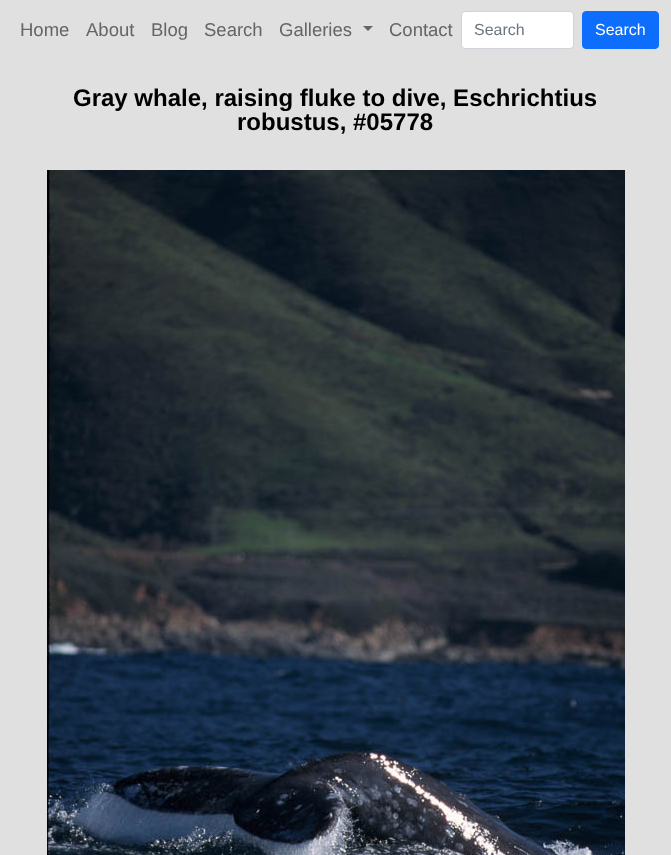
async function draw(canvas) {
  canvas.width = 671
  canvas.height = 855
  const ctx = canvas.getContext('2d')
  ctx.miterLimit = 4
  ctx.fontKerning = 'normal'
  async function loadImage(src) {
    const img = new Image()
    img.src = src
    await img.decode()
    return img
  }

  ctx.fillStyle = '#e0e0e0'
  ctx.fillRect(0, 0, 671, 855)
  ctx.font = '18.5px Liberation Sans'
  ctx.fillStyle = '#656565'
  ctx.fillText('Home', 20, 36)
  ctx.fillText('About', 86, 36)
  ctx.fillText('Blog', 151, 36)
  ctx.fillText('Search', 204, 36)
  ctx.fillText('Galleries', 279, 36)
  ctx.beginPath()
  ctx.moveTo(363, 26)
  ctx.lineTo(373, 26)
  ctx.lineTo(368, 31)
  ctx.closePath()
  ctx.fill()
  ctx.fillText('Contact', 389, 36)
  ctx.fillStyle = '#fff'
  ctx.beginPath()
  ctx.roundRect(461.5, 11.5, 112, 37, 3.5)
  ctx.fill()
  ctx.strokeStyle = '#ced4da'
  ctx.stroke()
  ctx.font = '16px Liberation Sans'
  ctx.fillStyle = '#6c757d'
  ctx.fillText('Search', 474, 35)
  ctx.fillStyle = '#0d6efd'
  ctx.beginPath()
  ctx.roundRect(582.5, 11.5, 76, 37, 3.5)
  ctx.fill()
  ctx.strokeStyle = '#0d6efd'
  ctx.stroke()
  ctx.fillStyle = '#fff'
  ctx.fillText('Search', 595, 35)
  ctx.font = 'bold 24px Liberation Sans'
  ctx.fillStyle = '#000'
  ctx.fillText('Gray whale, raising fluke to dive, Eschrichtius', 73, 106)
  ctx.fillText('robustus, #05778', 237, 130)
  ctx.drawImage(await loadImage('image0.png'), 47, 170, 578, 685)
}

draw(document.querySelector('canvas'))
